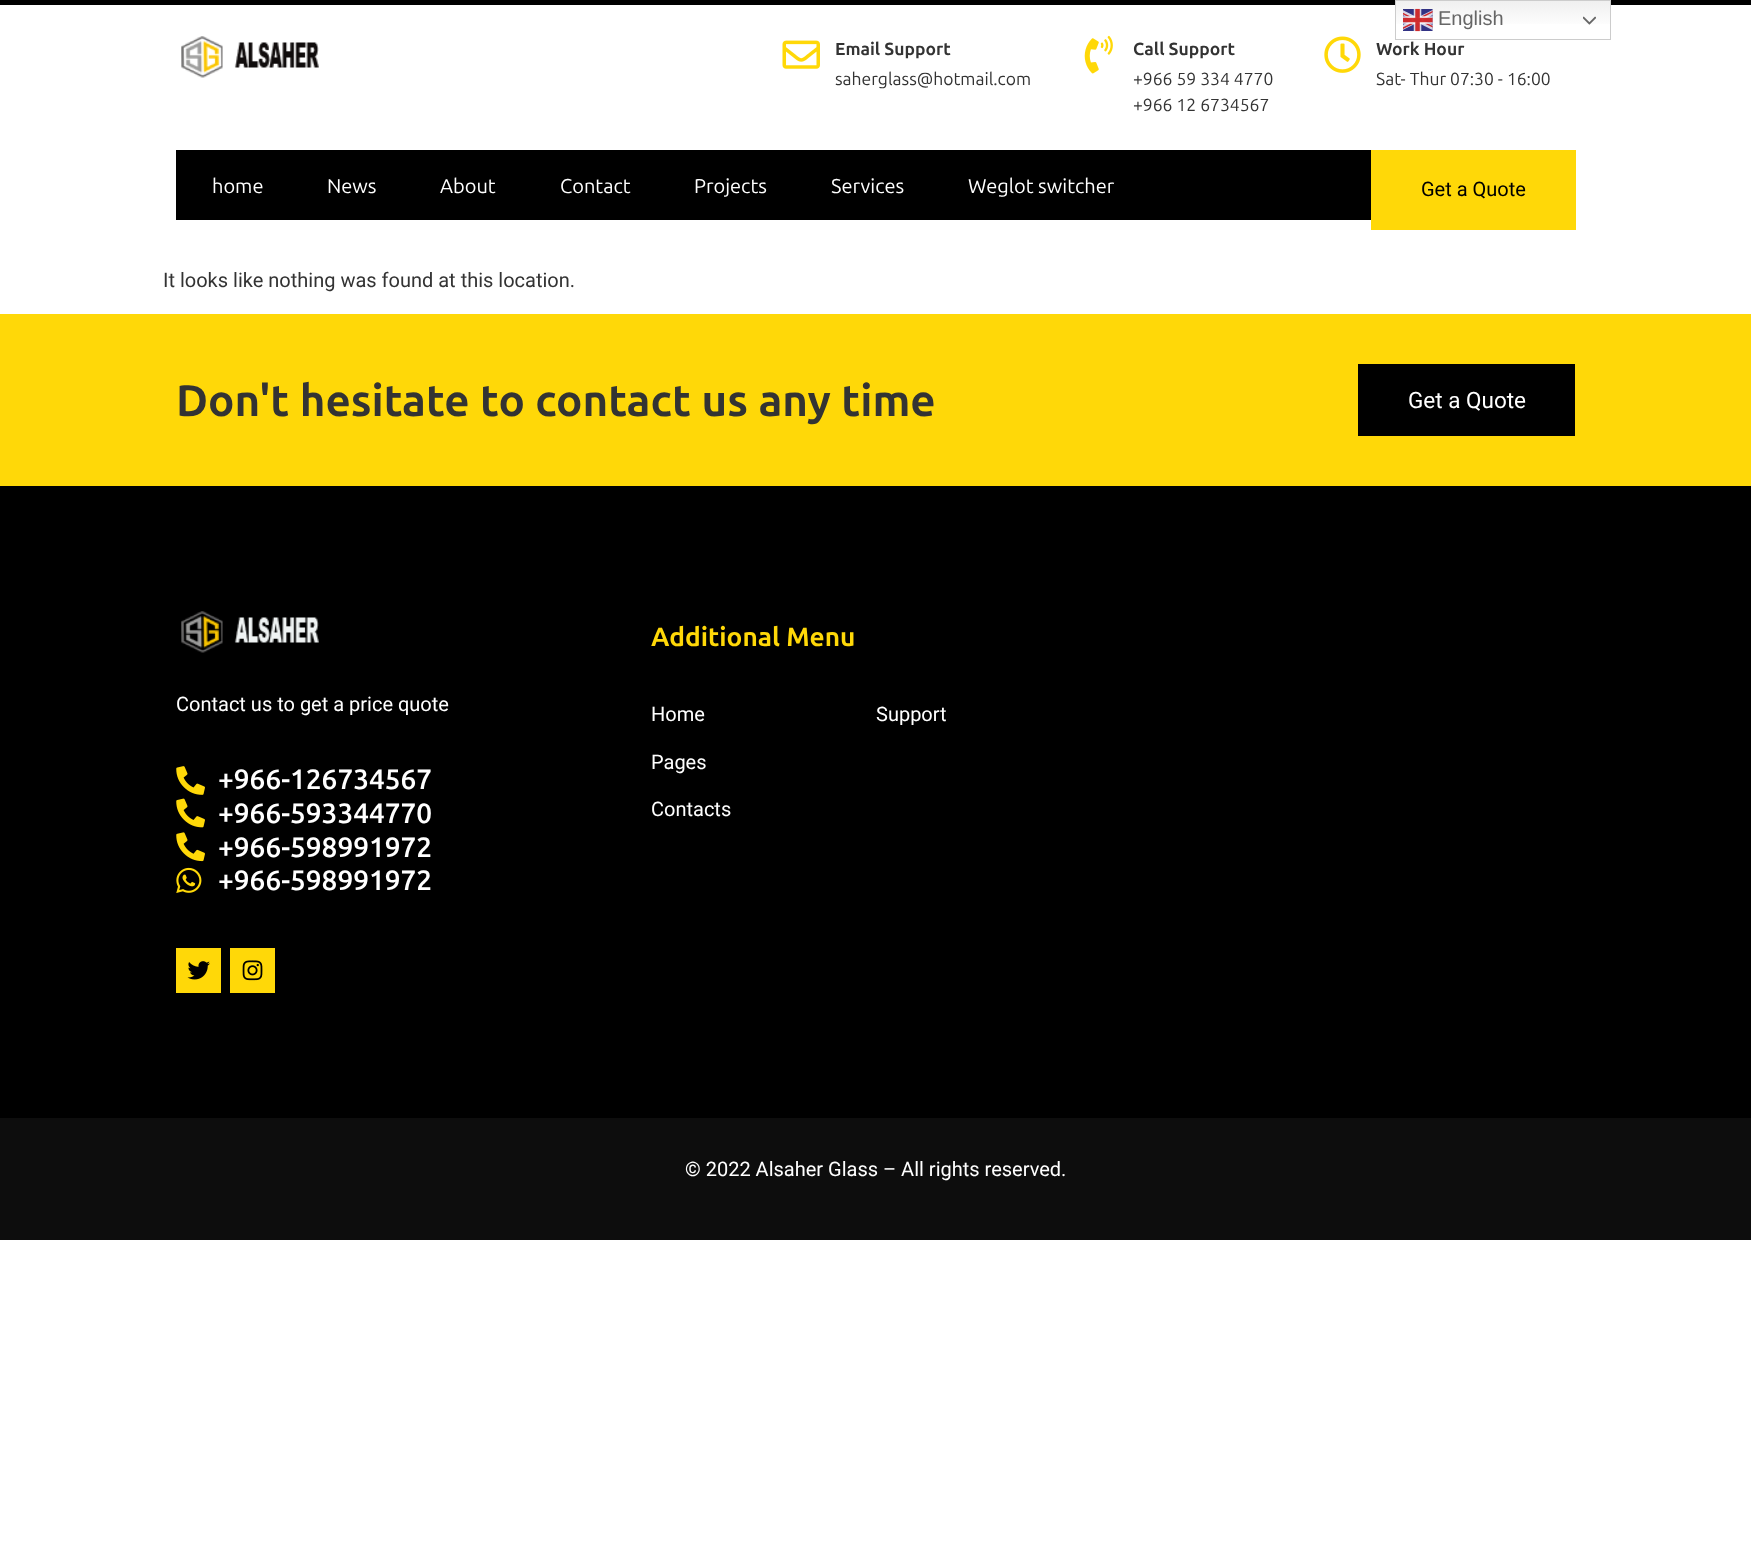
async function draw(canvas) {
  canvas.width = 1751
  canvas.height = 1556
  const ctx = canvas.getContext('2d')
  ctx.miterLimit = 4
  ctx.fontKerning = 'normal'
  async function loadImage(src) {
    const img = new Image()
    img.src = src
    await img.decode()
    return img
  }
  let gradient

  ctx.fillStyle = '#fff'
  ctx.fillRect(0, 0, 1751, 1556)
  ctx.fillStyle = '#000'
  ctx.fillRect(0, 0, 1751, 5)
  gradient = ctx.createLinearGradient(1503, 0, 1503, 40)
  gradient.addColorStop(0, '#efefef')
  gradient.addColorStop(0.7, '#fff')
  ctx.fillStyle = gradient
  ctx.fillRect(1396, 1, 214, 23)
  ctx.strokeStyle = '#ccc'
  ctx.strokeRect(1395.5, 0.5, 215, 39)
  ctx.drawImage(await loadImage('image0.png'), 1403, 8, 30, 24)
  ctx.font = '20px Liberation Sans'
  ctx.fillStyle = '#666'
  ctx.fillText('English', 1438, 25)
  ctx.drawImage(await loadImage('image1.png'), 1583, 16, 13, 9)
  ctx.drawImage(await loadImage('image2.png'), 181, 36, 138, 42)
  ctx.drawImage(await loadImage('image3.png'), 782, 40, 38, 29)
  ctx.font = 'bold 17.5px Ubuntu'
  ctx.fillStyle = '#333'
  ctx.fillText('Email Support', 835, 55)
  ctx.font = '17.5px Ubuntu'
  ctx.fillText('saherglass@hotmail.com', 835, 85)
  ctx.drawImage(await loadImage('image4.png'), 1084, 35, 29, 39)
  ctx.font = 'bold 17.5px Ubuntu'
  ctx.fillText('Call Support', 1133, 55)
  ctx.font = '17.5px Ubuntu'
  ctx.fillText('+966 59 334 4770', 1133, 85)
  ctx.fillText('+966 12 6734567', 1133, 111)
  ctx.drawImage(await loadImage('image5.png'), 1324, 36, 37, 37)
  ctx.font = 'bold 17.5px Ubuntu'
  ctx.fillText('Work Hour', 1376, 55)
  ctx.font = '17.5px Ubuntu'
  ctx.fillText('Sat- Thur 07:30 - 16:00', 1376, 85)
  ctx.fillStyle = '#000'
  ctx.fillRect(176, 150, 1195, 70)
  ctx.font = '20px Ubuntu'
  ctx.fillStyle = '#fff'
  ctx.fillText('home', 212, 193)
  ctx.fillText('News', 327, 193)
  ctx.fillText('About', 440, 193)
  ctx.fillText('Contact', 560, 193)
  ctx.fillText('Projects', 694, 193)
  ctx.fillText('Services', 831, 193)
  ctx.fillText('Weglot switcher', 968, 193)
  ctx.fillStyle = '#ffd808'
  ctx.fillRect(1371, 150, 205, 80)
  ctx.font = '20px Roboto'
  ctx.fillStyle = '#000'
  ctx.fillText('Get a Quote', 1421, 196)
  ctx.fillStyle = '#333'
  ctx.fillText('It looks like nothing was found at this location.', 163, 287)
  ctx.fillStyle = '#ffd808'
  ctx.fillRect(0, 314, 1751, 172)
  ctx.font = 'bold 44px Ubuntu'
  ctx.fillStyle = '#333'
  ctx.fillText('Don\'t hesitate to contact us any time', 176, 416)
  ctx.fillStyle = '#000'
  ctx.fillRect(1358, 364, 217, 72)
  ctx.font = '22.5px Roboto'
  ctx.fillStyle = '#fff'
  ctx.fillText('Get a Quote', 1408, 408)
  ctx.fillStyle = '#000'
  ctx.fillRect(0, 486, 1751, 632)
  ctx.drawImage(await loadImage('image6.png'), 181, 611, 138, 42)
  ctx.font = '20px Roboto'
  ctx.fillStyle = '#fff'
  ctx.fillText('Contact us to get a price quote', 176, 711)
  ctx.drawImage(await loadImage('image7.png'), 176, 766, 29, 29)
  ctx.font = '600 28px Ubuntu'
  ctx.fillText('+966-126734567', 218, 789)
  ctx.drawImage(await loadImage('image8.png'), 176, 798, 29, 30)
  ctx.fillText('+966-593344770', 218, 823)
  ctx.drawImage(await loadImage('image9.png'), 176, 832, 29, 30)
  ctx.fillText('+966-598991972', 218, 857)
  ctx.drawImage(await loadImage('image10.png'), 176, 867, 26, 26)
  ctx.fillText('+966-598991972', 218, 890)
  ctx.fillStyle = '#ffd808'
  ctx.fillRect(176, 948, 45, 45)
  ctx.drawImage(await loadImage('image11.png'), 187, 961, 23, 19)
  ctx.fillRect(230, 948, 45, 45)
  ctx.drawImage(await loadImage('image12.png'), 242, 960, 21, 21)
  ctx.font = 'bold 26.25px Ubuntu'
  ctx.fillText('Additional Menu', 651, 646)
  ctx.font = '20px Roboto'
  ctx.fillStyle = '#fff'
  ctx.fillText('Home', 651, 721)
  ctx.fillText('Pages', 651, 769)
  ctx.fillText('Contacts', 651, 816)
  ctx.fillText('Support', 876, 721)
  ctx.fillStyle = '#0d0d0d'
  ctx.fillRect(0, 1118, 1751, 122)
  ctx.fillStyle = '#fff'
  ctx.fillText('© 2022 Alsaher Glass – All rights reserved.', 685, 1176)
}

draw(document.querySelector('canvas'))
